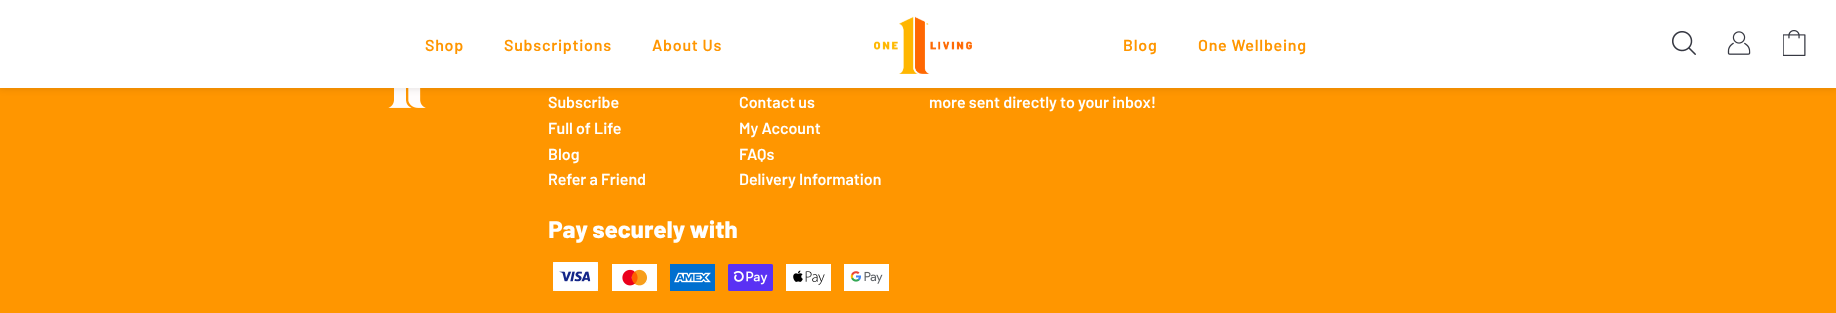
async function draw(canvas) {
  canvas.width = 1836
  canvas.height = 313
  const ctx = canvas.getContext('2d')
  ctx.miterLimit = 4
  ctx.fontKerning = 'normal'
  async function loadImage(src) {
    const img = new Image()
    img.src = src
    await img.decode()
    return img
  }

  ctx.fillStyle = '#ff9600'
  ctx.fillRect(0, 0, 1836, 313)
  ctx.drawImage(await loadImage('image4.png'), 388, 88, 38, 20)
  ctx.fillStyle = '#0000001a'
  ctx.filter = 'blur(3.5px)'
  ctx.beginPath()
  ctx.rect(-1, -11, 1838, 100)
  ctx.fill()
  ctx.filter = 'none'
  ctx.fillStyle = '#fff'
  ctx.fillRect(0, 0, 1836, 88)
  ctx.letterSpacing = '0.75px'
  ctx.font = '600 16px Barlow'
  ctx.fillStyle = '#ff9600'
  ctx.fillText('Shop', 425, 51)
  ctx.fillText('Subscriptions', 504, 51)
  ctx.fillText('About Us', 652, 51)
  ctx.drawImage(await loadImage('image0.png'), 874, 16, 98, 58)
  ctx.fillText('Blog', 1123, 51)
  ctx.fillText('One Wellbeing', 1198, 51)
  ctx.drawImage(await loadImage('image1.png'), 1672, 31, 24, 24)
  ctx.drawImage(await loadImage('image2.png'), 1727, 31, 24, 24)
  ctx.drawImage(await loadImage('image3.png'), 1783, 30, 23, 26)
  ctx.letterSpacing = '0px'
  ctx.fillStyle = '#fff'
  ctx.fillText('Subscribe', 548, 108)
  ctx.fillText('Full of Life', 548, 134)
  ctx.fillText('Blog', 548, 160)
  ctx.fillText('Refer a Friend', 548, 185)
  ctx.fillText('Contact us', 739, 108)
  ctx.fillText('My Account', 739, 134)
  ctx.fillText('FAQs', 739, 160)
  ctx.fillText('Delivery Information', 739, 185)
  ctx.fillText('more sent directly to your inbox!', 929, 108)
  ctx.font = '800 24px Barlow'
  ctx.fillText('Pay securely with', 548, 238)
  ctx.drawImage(await loadImage('image5.png'), 553, 262, 45, 29)
  ctx.drawImage(await loadImage('image6.png'), 612, 264, 45, 27)
  ctx.drawImage(await loadImage('image7.png'), 670, 264, 45, 27)
  ctx.drawImage(await loadImage('image8.png'), 728, 264, 45, 27)
  ctx.drawImage(await loadImage('image9.png'), 786, 264, 45, 27)
  ctx.drawImage(await loadImage('image10.png'), 844, 264, 45, 27)
}

draw(document.querySelector('canvas'))
